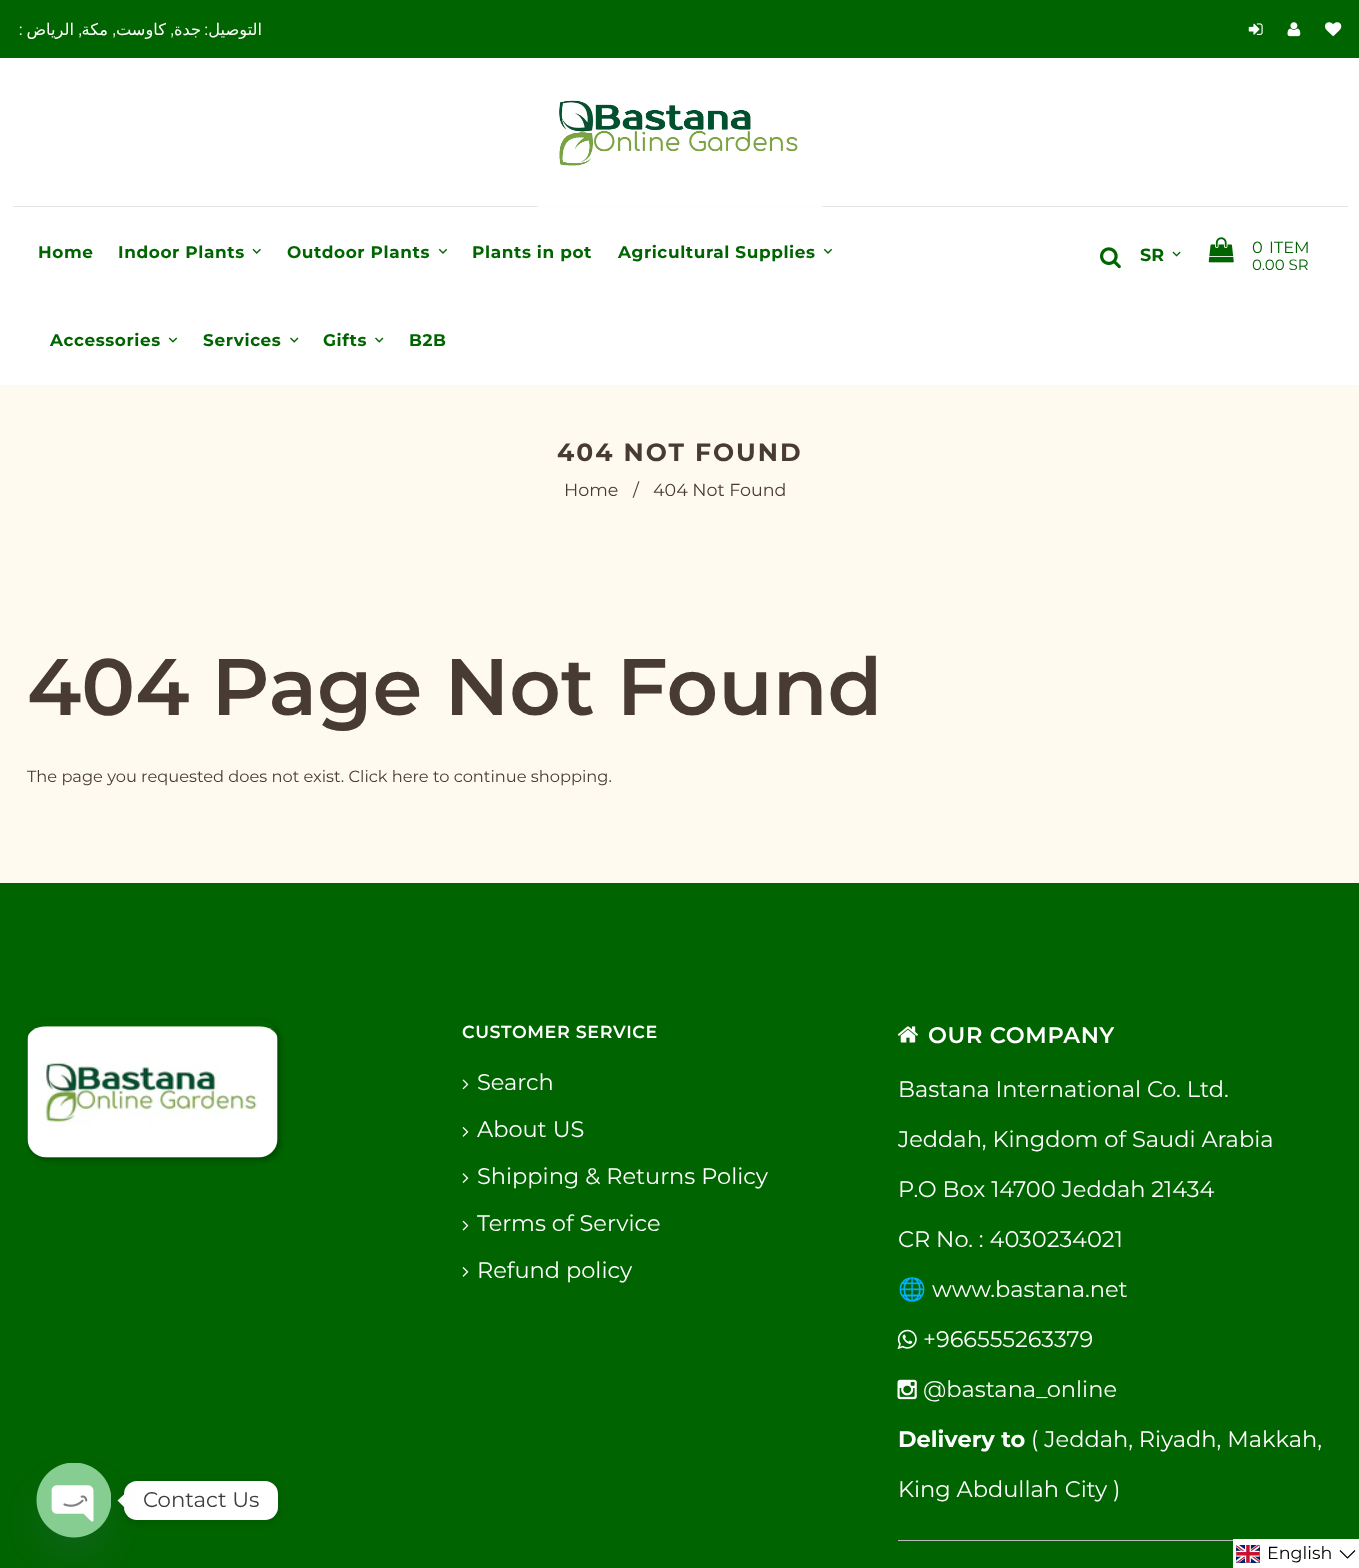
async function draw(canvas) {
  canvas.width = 1359
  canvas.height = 1568
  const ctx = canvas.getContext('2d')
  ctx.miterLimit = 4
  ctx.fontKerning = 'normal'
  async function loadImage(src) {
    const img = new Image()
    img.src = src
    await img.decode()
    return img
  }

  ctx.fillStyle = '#fffaf0'
  ctx.fillRect(0, 0, 1359, 1568)
  ctx.fillStyle = '#006400'
  ctx.fillRect(0, 0, 1359, 58)
  ctx.font = '16.25px Montserrat'
  ctx.fillStyle = '#fff'
  ctx.fillText(':', 19, 35)
  ctx.direction = 'rtl'
  ctx.font = '16.25px DejaVu Sans'
  ctx.fillText('الرياض', 74, 35)
  ctx.font = '16.25px Montserrat'
  ctx.fillText(',', 82, 35)
  ctx.font = '16.25px DejaVu Sans'
  ctx.fillText('مكة', 108, 35)
  ctx.font = '16.25px Montserrat'
  ctx.fillText(',', 116, 35)
  ctx.font = '16.25px DejaVu Sans'
  ctx.fillText('كاوست', 166, 35)
  ctx.font = '16.25px Montserrat'
  ctx.fillText(',', 174, 35)
  ctx.font = '16.25px DejaVu Sans'
  ctx.fillText('جدة', 201, 35)
  ctx.font = '16.25px Montserrat'
  ctx.fillText(':', 208, 35)
  ctx.font = '16.25px DejaVu Sans'
  ctx.fillText('التوصيل', 262, 35)
  ctx.drawImage(await loadImage('image0.png'), 1248, 23, 15, 12)
  ctx.drawImage(await loadImage('image1.png'), 1287, 22, 14, 15)
  ctx.drawImage(await loadImage('image2.png'), 1325, 22, 17, 15)
  ctx.fillRect(0, 58, 1359, 327)
  ctx.fillStyle = '#e4e4e4'
  ctx.fillRect(13, 206, 1335, 1)
  ctx.drawImage(await loadImage('image3.png'), 537, 100, 286, 107)
  ctx.letterSpacing = '0.6px'
  ctx.direction = 'ltr'
  ctx.font = 'bold 16.9px Montserrat'
  ctx.fillStyle = '#006400'
  ctx.fillText('Home', 38, 258)
  ctx.fillText('Indoor Plants', 118, 258)
  ctx.drawImage(await loadImage('image4.png'), 252, 248, 9, 6)
  ctx.fillText('Outdoor Plants', 287, 258)
  ctx.drawImage(await loadImage('image5.png'), 438, 248, 10, 6)
  ctx.fillText('Plants in pot', 472, 258)
  ctx.fillText('Agricultural Supplies', 618, 258)
  ctx.drawImage(await loadImage('image5.png'), 823, 248, 10, 6)
  ctx.fillText('Accessories', 50, 346)
  ctx.drawImage(await loadImage('image6.png'), 168, 337, 10, 6)
  ctx.fillText('Services', 203, 346)
  ctx.drawImage(await loadImage('image7.png'), 290, 337, 9, 6)
  ctx.fillText('Gifts', 323, 346)
  ctx.drawImage(await loadImage('image7.png'), 375, 337, 9, 6)
  ctx.fillText('B2B', 409, 346)
  ctx.drawImage(await loadImage('image8.png'), 1100, 247, 21, 22)
  ctx.letterSpacing = '0px'
  ctx.font = 'bold 17.5px Montserrat'
  ctx.fillText('SR', 1140, 261)
  ctx.drawImage(await loadImage('image9.png'), 1172, 251, 9, 6)
  ctx.drawImage(await loadImage('image10.png'), 1208, 237, 26, 26)
  ctx.font = '16.25px Montserrat'
  ctx.fillText('0', 1252, 253)
  ctx.fillText('ITEM', 1269, 253)
  ctx.font = '15px Montserrat'
  ctx.fillText('0.00 SR', 1252, 270)
  ctx.letterSpacing = '2px'
  ctx.font = 'bold 25px Montserrat'
  ctx.fillStyle = '#483b33'
  ctx.fillText('404 NOT FOUND', 557, 461)
  ctx.letterSpacing = '0px'
  ctx.font = '17.5px Montserrat'
  ctx.fillText('Home', 564, 496)
  ctx.fillText('/', 633, 496)
  ctx.fillText('404 Not Found', 653, 496)
  ctx.font = '600 80px Montserrat'
  ctx.fillText('404 Page Not Found', 27, 715)
  ctx.font = '16.25px Montserrat'
  ctx.fillText('The page you requested does not exist. Click here to continue shopping.', 27, 782)
  ctx.fillStyle = '#006400'
  ctx.fillRect(0, 883, 1359, 685)
  ctx.save()
  ctx.beginPath()
  ctx.moveTo(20, 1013)
  ctx.lineTo(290, 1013)
  ctx.lineTo(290, 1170)
  ctx.lineTo(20, 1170)
  ctx.closePath()
  ctx.moveTo(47, 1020)
  ctx.lineTo(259, 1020)
  ctx.bezierCurveTo(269.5, 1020, 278, 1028.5, 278, 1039)
  ctx.lineTo(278, 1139)
  ctx.bezierCurveTo(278, 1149.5, 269.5, 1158, 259, 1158)
  ctx.lineTo(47, 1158)
  ctx.bezierCurveTo(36.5, 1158, 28, 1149.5, 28, 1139)
  ctx.lineTo(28, 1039)
  ctx.bezierCurveTo(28, 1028.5, 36.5, 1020, 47, 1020)
  ctx.closePath()
  ctx.clip('evenodd')
  ctx.fillStyle = '#0000004d'
  ctx.filter = 'blur(3px)'
  ctx.beginPath()
  ctx.roundRect(30, 1023, 250, 137, 19)
  ctx.fill()
  ctx.filter = 'none'
  ctx.restore()
  ctx.drawImage(await loadImage('image11.png'), 27, 1026, 251, 132)
  ctx.letterSpacing = '0.6px'
  ctx.font = '600 17.5px Montserrat'
  ctx.fillStyle = '#fff'
  ctx.fillText('CUSTOMER SERVICE', 462, 1038)
  ctx.drawImage(await loadImage('image12.png'), 462, 1079, 7, 11)
  ctx.letterSpacing = '0px'
  ctx.font = '22.5px Montserrat'
  ctx.fillText('Search', 477, 1090)
  ctx.drawImage(await loadImage('image13.png'), 462, 1127, 7, 10)
  ctx.fillText('About US', 477, 1137)
  ctx.drawImage(await loadImage('image14.png'), 462, 1173, 7, 10)
  ctx.fillText('Shipping & Returns Policy', 477, 1184)
  ctx.drawImage(await loadImage('image15.png'), 462, 1220, 7, 11)
  ctx.fillText('Terms of Service', 477, 1231)
  ctx.drawImage(await loadImage('image13.png'), 462, 1267, 7, 10)
  ctx.fillText('Refund policy', 477, 1278)
  ctx.fillStyle = '#bcbcbc'
  ctx.fillRect(898, 1540, 335, 1)
  ctx.drawImage(await loadImage('image16.png'), 897, 1026, 21, 17)
  ctx.letterSpacing = '0.6px'
  ctx.font = '600 22.5px Montserrat'
  ctx.fillStyle = '#fff'
  ctx.fillText('OUR COMPANY', 928, 1043)
  ctx.letterSpacing = '0px'
  ctx.font = '22.5px Montserrat'
  ctx.fillText('Bastana International Co. Ltd.', 898, 1097)
  ctx.fillText('Jeddah, Kingdom of Saudi Arabia', 898, 1147)
  ctx.fillText('P.O Box 14700 Jeddah 21434', 898, 1197)
  ctx.fillText('CR No. : 4030234021', 898, 1247)
  ctx.font = '22.5px Noto Color Emoji'
  ctx.fillText('🌐', 898, 1297)
  ctx.font = '22.5px Montserrat'
  ctx.fillText('www.bastana.net', 932, 1297)
  ctx.drawImage(await loadImage('image17.png'), 897, 1329, 20, 21)
  ctx.fillText('+966555263379', 923, 1347)
  ctx.drawImage(await loadImage('image18.png'), 897, 1379, 20, 21)
  ctx.fillText('@bastana_online', 923, 1397)
  ctx.font = 'bold 22.5px Montserrat'
  ctx.fillText('Delivery to', 898, 1447)
  ctx.font = '22.5px Montserrat'
  ctx.fillText('( Jeddah, Riyadh, Makkah,', 1031, 1447)
  ctx.fillText('King Abdullah City )', 898, 1497)
  ctx.fillStyle = '#00000026'
  ctx.filter = 'blur(5px)'
  ctx.beginPath()
  ctx.roundRect(124, 1483, 154, 38, 13)
  ctx.fill()
  ctx.filter = 'none'
  ctx.fillStyle = '#fff'
  ctx.beginPath()
  ctx.roundRect(124, 1481, 154, 39, 13)
  ctx.fill()
  ctx.beginPath()
  ctx.moveTo(124, 1494.5)
  ctx.lineTo(124, 1507)
  ctx.lineTo(117.5, 1500.5)
  ctx.closePath()
  ctx.fill()
  ctx.fillStyle = '#49687e29'
  ctx.filter = 'blur(15px)'
  ctx.beginPath()
  ctx.roundRect(36, 1483, 75, 75, 37.5)
  ctx.fill()
  ctx.filter = 'none'
  ctx.drawImage(await loadImage('image19.png'), 36, 1463, 75, 75)
  ctx.font = '21.25px Montserrat'
  ctx.fillStyle = '#3d3d3d'
  ctx.fillText('Contact Us', 143, 1507)
  ctx.fillStyle = '#fff'
  ctx.fillRect(1233, 1539, 126, 29)
  ctx.drawImage(await loadImage('image20.png'), 1236, 1545, 24, 18)
  ctx.font = '17.5px Montserrat'
  ctx.fillStyle = '#000'
  ctx.fillText('English', 1267, 1559)
  ctx.beginPath()
  ctx.moveTo(1340, 1550.5)
  ctx.lineTo(1347.5, 1558)
  ctx.lineTo(1355, 1550.5)
  ctx.strokeStyle = '#000'
  ctx.lineWidth = 1.2
  ctx.stroke()
}

draw(document.querySelector('canvas'))
